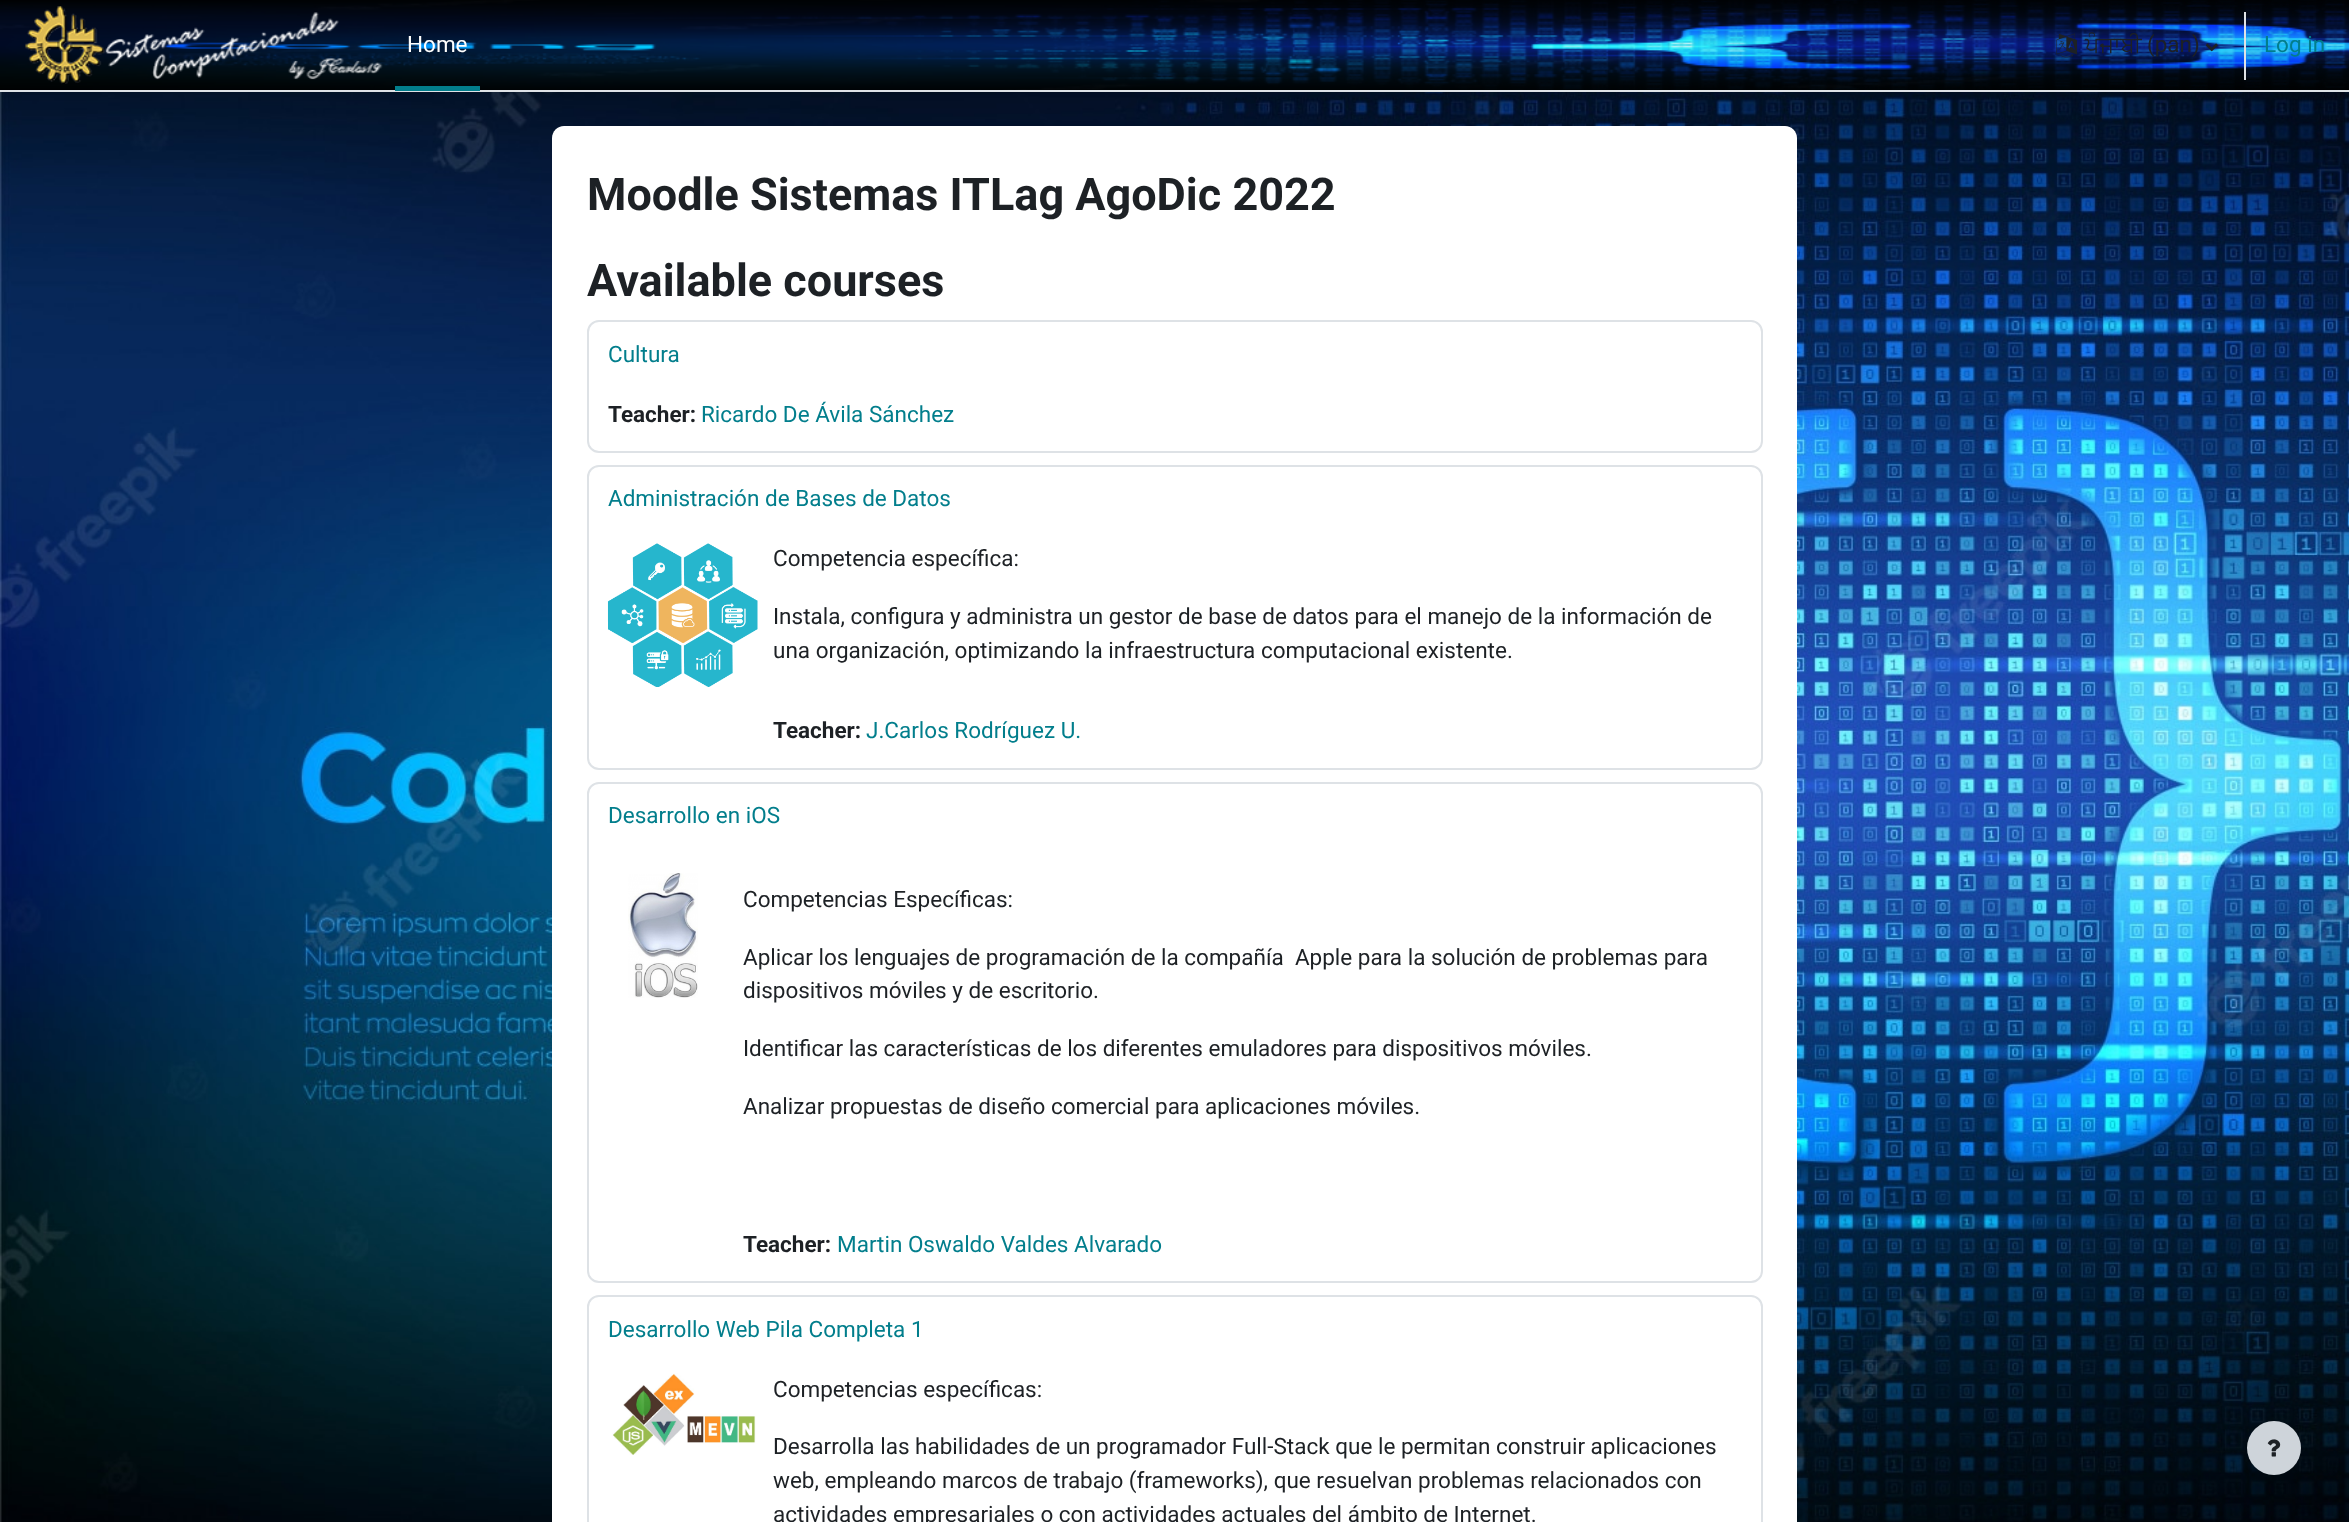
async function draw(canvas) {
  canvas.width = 2349
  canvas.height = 1522
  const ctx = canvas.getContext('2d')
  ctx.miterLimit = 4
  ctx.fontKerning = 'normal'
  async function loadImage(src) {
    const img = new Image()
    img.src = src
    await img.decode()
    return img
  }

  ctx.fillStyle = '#fff'
  ctx.fillRect(0, 0, 2349, 1522)
  ctx.drawImage(await loadImage('image0.png'), 0, 92, 2349, 1430)
  ctx.drawImage(await loadImage('image1.png'), 0, 0, 2349, 90)
  ctx.fillStyle = '#dee2e6'
  ctx.fillRect(0, 90, 2349, 2)
  ctx.drawImage(await loadImage('image2.png'), 25, 6, 358, 78)
  ctx.fillStyle = '#027e8c'
  ctx.fillRect(395, 86, 85, 5)
  ctx.font = '22.5px Roboto'
  ctx.fillStyle = '#fff'
  ctx.fillText('Home', 407, 52)
  ctx.drawImage(await loadImage('image3.png'), 2056, 33, 22, 25)
  ctx.font = '22.5px FreeSans'
  ctx.fillStyle = '#1d2125'
  ctx.fillText('ਪੰਜਾਬੀ ', 2085, 52)
  ctx.font = '22.5px Roboto'
  ctx.fillText('(pan)', 2147, 52)
  ctx.drawImage(await loadImage('image4.png'), 2205, 43, 13, 9)
  ctx.fillStyle = '#dee2e6'
  ctx.fillRect(2244, 12, 2, 68)
  ctx.fillStyle = '#027e8c'
  ctx.fillText('Log in', 2264, 52)
  ctx.fillStyle = '#fff'
  ctx.beginPath()
  ctx.moveTo(564, 126)
  ctx.lineTo(1785, 126)
  ctx.bezierCurveTo(1791.5, 126, 1797, 131.5, 1797, 138)
  ctx.lineTo(1797, 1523)
  ctx.lineTo(552, 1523)
  ctx.lineTo(552, 138)
  ctx.bezierCurveTo(552, 131.5, 557.5, 126, 564, 126)
  ctx.closePath()
  ctx.fill()
  ctx.font = 'bold 45px Roboto'
  ctx.fillStyle = '#1d2125'
  ctx.fillText('Moodle Sistemas ITLag AgoDic 2022', 587, 210)
  ctx.fillText('Available courses', 587, 296)
  ctx.beginPath()
  ctx.roundRect(588, 321, 1174, 131, 11)
  ctx.strokeStyle = '#dee2e6'
  ctx.lineWidth = 2
  ctx.stroke()
  ctx.font = '22.5px Roboto'
  ctx.fillStyle = '#027e8c'
  ctx.fillText('Cultura', 608, 362)
  ctx.font = 'bold 22.5px Roboto'
  ctx.fillStyle = '#1d2125'
  ctx.fillText('Teacher:', 608, 422)
  ctx.font = '22.5px Roboto'
  ctx.fillStyle = '#027e8c'
  ctx.fillText('Ricardo De Ávila Sánchez', 701, 422)
  ctx.beginPath()
  ctx.roundRect(588, 466, 1174, 303, 11)
  ctx.stroke()
  ctx.fillText('Administración de Bases de Datos', 608, 506)
  ctx.drawImage(await loadImage('image5.png'), 607, 543, 151, 144)
  ctx.fillStyle = '#1d2125'
  ctx.fillText('Competencia específica:', 773, 566)
  ctx.fillText('Instala, configura y administra un gestor de base de datos para el manejo de la información de', 773, 624)
  ctx.fillText('una organización, optimizando la infraestructura computacional existente.', 773, 658)
  ctx.font = 'bold 22.5px Roboto'
  ctx.fillText('Teacher:', 773, 738)
  ctx.font = '22.5px Roboto'
  ctx.fillStyle = '#027e8c'
  ctx.fillText('J.Carlos Rodríguez U.', 866, 738)
  ctx.beginPath()
  ctx.roundRect(588, 783, 1174, 499, 11)
  ctx.stroke()
  ctx.fillText('Desarrollo en iOS', 608, 823)
  ctx.drawImage(await loadImage('image6.png'), 628, 873, 70, 125)
  ctx.fillStyle = '#1d2125'
  ctx.fillText('Competencias Específicas:', 743, 907)
  ctx.fillText('Aplicar los lenguajes de programación de la compañía  Apple para la solución de problemas para', 743, 965)
  ctx.fillText('dispositivos móviles y de escritorio.', 743, 998)
  ctx.fillText('Identificar las características de los diferentes emuladores para dispositivos móviles.', 743, 1056)
  ctx.fillText('Analizar propuestas de diseño comercial para aplicaciones móviles.', 743, 1114)
  ctx.font = 'bold 22.5px Roboto'
  ctx.fillText('Teacher:', 743, 1252)
  ctx.font = '22.5px Roboto'
  ctx.fillStyle = '#027e8c'
  ctx.fillText('Martin Oswaldo Valdes Alvarado', 837, 1252)
  ctx.beginPath()
  ctx.roundRect(588, 1296, 1174, 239, 11)
  ctx.stroke()
  ctx.fillText('Desarrollo Web Pila Completa 1', 608, 1337)
  ctx.drawImage(await loadImage('image7.png'), 612, 1373, 144, 82)
  ctx.fillStyle = '#1d2125'
  ctx.fillText('Competencias específicas:', 773, 1397)
  ctx.fillText('Desarrolla las habilidades de un programador Full-Stack que le permitan construir aplicaciones', 773, 1454)
  ctx.fillText('web, empleando marcos de trabajo (frameworks), que resuelvan problemas relacionados con', 773, 1488)
  ctx.fillText('actividades empresariales o con actividades actuales del ámbito de Internet.', 773, 1522)
  ctx.fillStyle = '#ced4da'
  ctx.beginPath()
  ctx.arc(2274, 1448, 27, 0, 2 * Math.PI)
  ctx.fill()
  ctx.drawImage(await loadImage('image8.png'), 2267, 1439, 14, 18)
}

draw(document.querySelector('canvas'))
